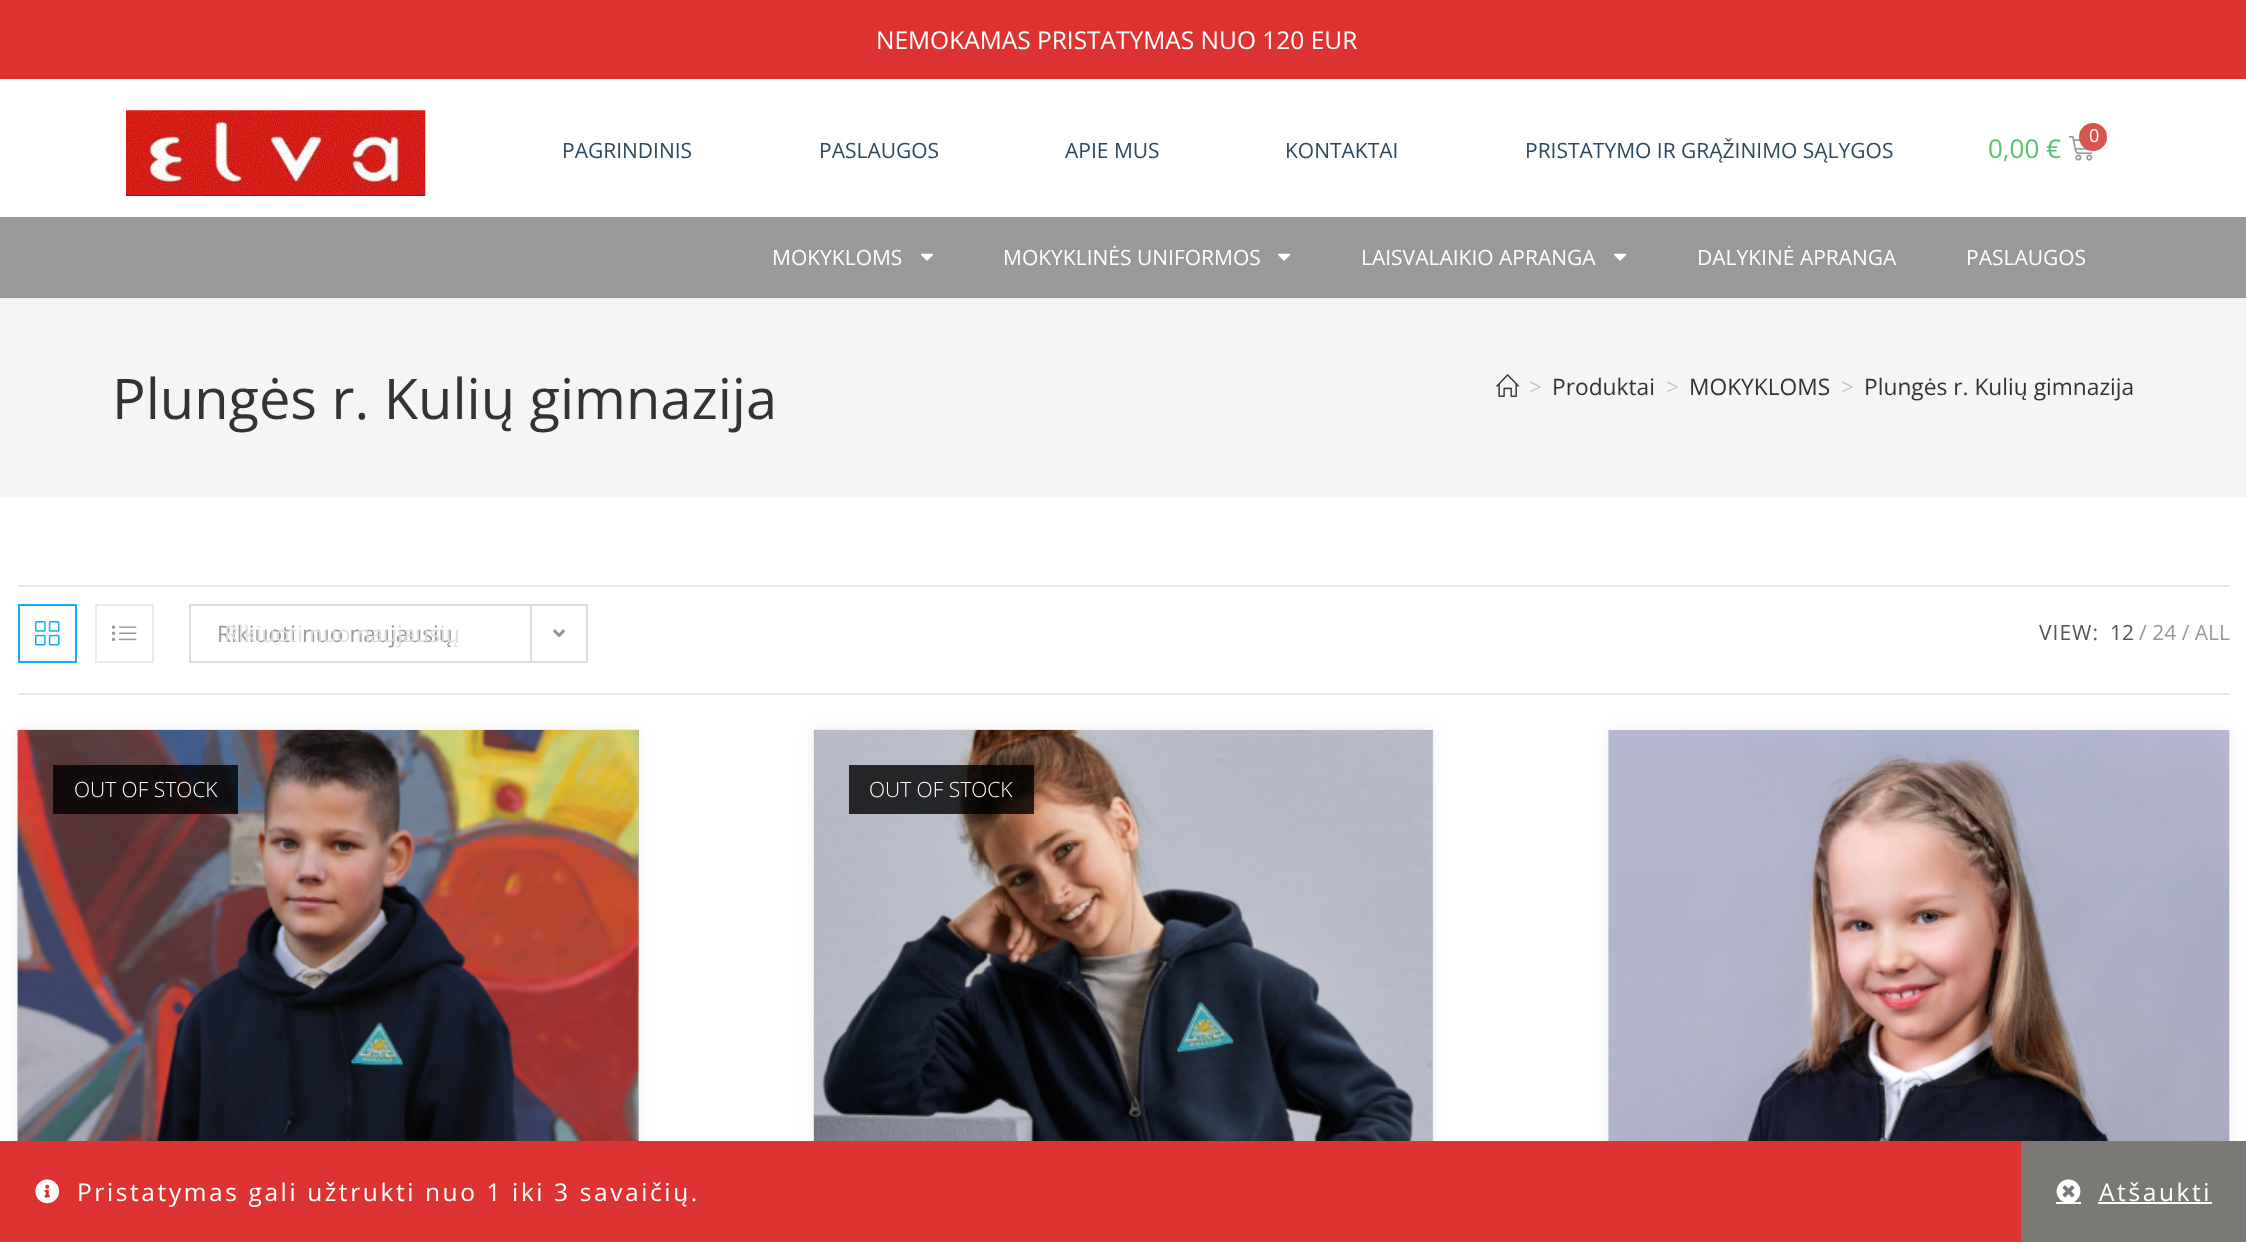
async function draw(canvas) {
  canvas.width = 2246
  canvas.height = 1242
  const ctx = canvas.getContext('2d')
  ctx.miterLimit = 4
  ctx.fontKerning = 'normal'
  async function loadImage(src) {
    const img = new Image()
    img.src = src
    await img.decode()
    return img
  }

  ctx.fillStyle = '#fff'
  ctx.fillRect(0, 0, 2246, 1242)
  ctx.fillStyle = '#f1f1f1'
  ctx.fillRect(0, 298, 2246, 2)
  ctx.fillStyle = '#d33'
  ctx.fillRect(0, 0, 2246, 79)
  ctx.font = '24.5px Open Sans'
  ctx.fillStyle = '#fff'
  ctx.fillText('NEMOKAMAS PRISTATYMAS NUO 120 EUR', 876, 49)
  ctx.drawImage(await loadImage('image0.png'), 126, 110, 300, 86)
  ctx.font = '21px Open Sans'
  ctx.fillStyle = '#2e485e'
  ctx.fillText('PAGRINDINIS', 562, 158)
  ctx.fillText('PASLAUGOS', 819, 158)
  ctx.fillText('APIE MUS', 1065, 158)
  ctx.fillText('KONTAKTAI', 1285, 158)
  ctx.fillText('PRISTATYMO IR GRĄŽINIMO SĄLYGOS', 1525, 158)
  ctx.drawImage(await loadImage('image1.png'), 2068, 136, 25, 25)
  ctx.fillStyle = '#d9534f'
  ctx.beginPath()
  ctx.arc(2093, 137, 14, 0, 2 * Math.PI)
  ctx.fill()
  ctx.font = '18px Open Sans'
  ctx.fillStyle = '#fff'
  ctx.fillText('0', 2089, 142)
  ctx.font = '26px Open Sans'
  ctx.fillStyle = '#57bf6d'
  ctx.fillText('0,00 €', 1988, 158)
  ctx.fillStyle = '#999'
  ctx.fillRect(0, 217, 2246, 81)
  ctx.font = '21px Open Sans'
  ctx.fillStyle = '#fff'
  ctx.fillText('MOKYKLOMS', 772, 265)
  ctx.drawImage(await loadImage('image2.png'), 921, 253, 13, 8)
  ctx.fillText('MOKYKLINĖS UNIFORMOS', 1003, 265)
  ctx.drawImage(await loadImage('image2.png'), 1278, 253, 13, 8)
  ctx.fillText('LAISVALAIKIO APRANGA', 1361, 265)
  ctx.drawImage(await loadImage('image2.png'), 1614, 253, 13, 8)
  ctx.fillText('DALYKINĖ APRANGA', 1697, 265)
  ctx.fillText('PASLAUGOS', 1966, 265)
  ctx.fillStyle = '#f5f5f5'
  ctx.fillRect(0, 300, 2246, 197)
  ctx.font = '56px Open Sans'
  ctx.fillStyle = '#333'
  ctx.fillText('Plungės r. Kulių gimnazija', 112, 419)
  ctx.drawImage(await loadImage('image3.png'), 1496, 374, 23, 23)
  ctx.font = '22.75px Open Sans'
  ctx.fillStyle = '#c6c6c6'
  ctx.fillText('>', 1529, 395)
  ctx.fillStyle = '#333'
  ctx.fillText('Produktai', 1552, 395)
  ctx.fillStyle = '#c6c6c6'
  ctx.fillText('>', 1666, 395)
  ctx.fillStyle = '#333'
  ctx.fillText('MOKYKLOMS', 1689, 395)
  ctx.fillStyle = '#c6c6c6'
  ctx.fillText('>', 1841, 395)
  ctx.fillStyle = '#333'
  ctx.fillText('Plungės r. Kulių gimnazija', 1864, 395)
  ctx.fillStyle = '#eaeaea'
  ctx.fillRect(18, 585, 2212, 2)
  ctx.fillRect(18, 693, 2212, 2)
  ctx.strokeStyle = '#13aff0'
  ctx.lineWidth = 2
  ctx.strokeRect(19, 605, 57, 57)
  ctx.drawImage(await loadImage('image4.png'), 35, 621, 25, 25)
  ctx.strokeStyle = '#eaeaea'
  ctx.strokeRect(96, 605, 57, 57)
  ctx.drawImage(await loadImage('image5.png'), 112, 625, 25, 16)
  ctx.strokeStyle = '#ddd'
  ctx.strokeRect(190, 605, 397, 57)
  ctx.fillStyle = '#999'
  ctx.fillText('Rikiuoti nuo naujausių', 217, 642)
  ctx.fillStyle = '#ddd'
  ctx.fillRect(530, 606, 2, 56)
  ctx.drawImage(await loadImage('image6.png'), 553, 629, 12, 8)
  ctx.fillStyle = '#dfdfdf'
  ctx.fillText('Rikiuoti nuo naujausių', 224, 642)
  ctx.letterSpacing = '1px'
  ctx.font = '21px Open Sans'
  ctx.fillStyle = '#555'
  ctx.fillText('VIEW:', 2039, 640)
  ctx.letterSpacing = '0px'
  ctx.fillText('12', 2110, 640)
  ctx.fillStyle = '#999'
  ctx.fillText('/ 24 / ALL', 2139, 640)
  ctx.fillStyle = '#0000000f'
  ctx.filter = 'blur(9px)'
  ctx.beginPath()
  ctx.rect(18, 730, 621, 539)
  ctx.fill()
  ctx.filter = 'none'
  ctx.drawImage(await loadImage('image7.png'), 17, 729, 622, 412)
  ctx.drawImage(await loadImage('image8.png'), 17, 729, 622, 412)
  ctx.fillStyle = '#000000cc'
  ctx.fillRect(53, 765, 185, 49)
  ctx.font = '300 21px Open Sans'
  ctx.fillStyle = '#fff'
  ctx.fillText('OUT OF STOCK', 74, 797)
  ctx.fillStyle = '#0000000f'
  ctx.filter = 'blur(9px)'
  ctx.beginPath()
  ctx.rect(814, 730, 619, 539)
  ctx.fill()
  ctx.filter = 'none'
  ctx.drawImage(await loadImage('image9.png'), 813, 729, 621, 412)
  ctx.drawImage(await loadImage('image10.png'), 813, 729, 620, 412)
  ctx.fillStyle = '#000000cc'
  ctx.fillRect(849, 765, 185, 49)
  ctx.fillStyle = '#fff'
  ctx.fillText('OUT OF STOCK', 869, 797)
  ctx.fillStyle = '#0000000f'
  ctx.filter = 'blur(9px)'
  ctx.beginPath()
  ctx.rect(1608, 730, 622, 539)
  ctx.fill()
  ctx.filter = 'none'
  ctx.drawImage(await loadImage('image11.png'), 1608, 729, 622, 412)
  ctx.fillStyle = '#d33'
  ctx.fillRect(0, 1141, 2021, 101)
  ctx.drawImage(await loadImage('image12.png'), 35, 1179, 25, 25)
  ctx.letterSpacing = '2.6px'
  ctx.font = '24.5px Open Sans'
  ctx.fillStyle = '#fff'
  ctx.fillText('Pristatymas gali užtrukti nuo 1 iki 3 savaičių.', 77, 1201)
  ctx.fillStyle = '#7a7975'
  ctx.fillRect(2021, 1141, 225, 101)
  ctx.drawImage(await loadImage('image13.png'), 2056, 1179, 25, 23)
  ctx.fillStyle = '#fff'
  ctx.fillText('Atšaukti', 2099, 1201)
  ctx.fillRect(2098, 1202, 114, 2)
  ctx.fillRect(2056, 1202, 25, 2)
}

draw(document.querySelector('canvas'))
